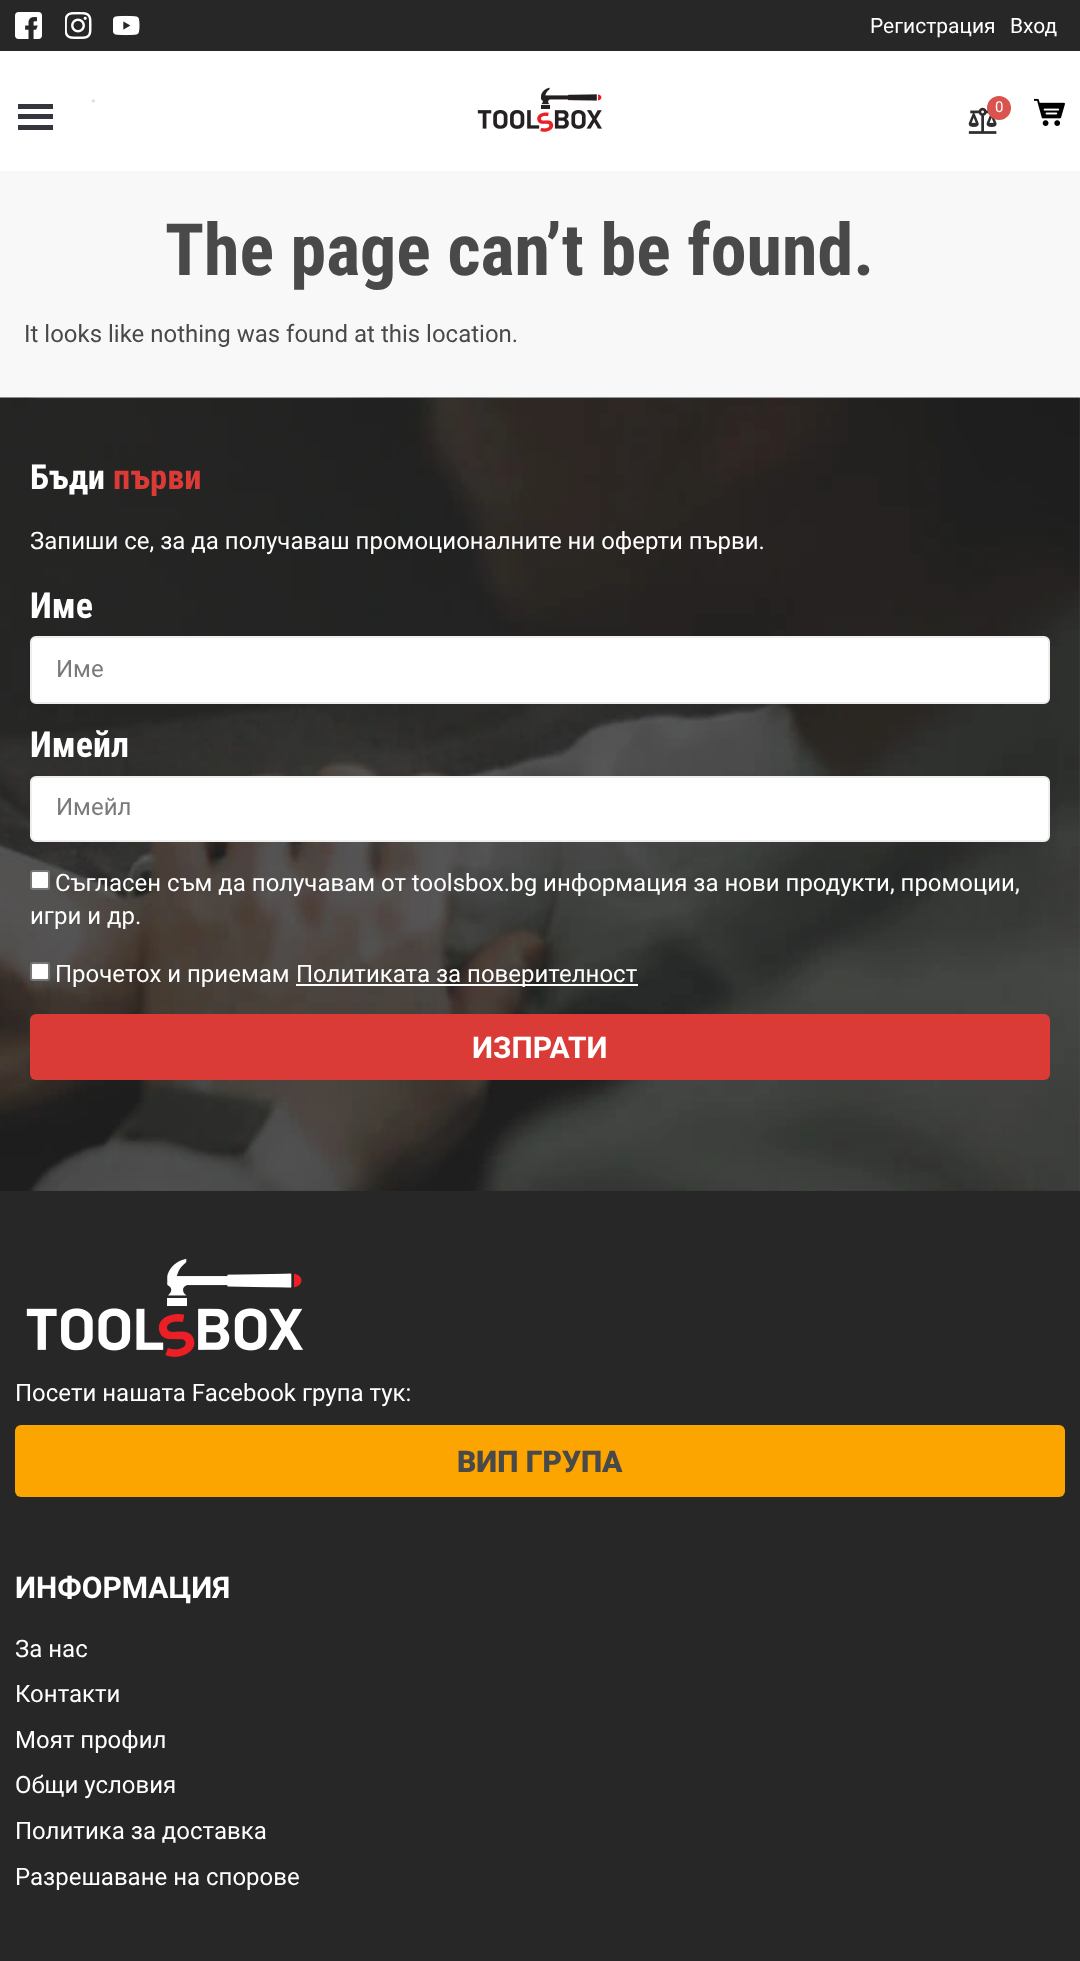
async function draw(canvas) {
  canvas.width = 1080
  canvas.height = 1961
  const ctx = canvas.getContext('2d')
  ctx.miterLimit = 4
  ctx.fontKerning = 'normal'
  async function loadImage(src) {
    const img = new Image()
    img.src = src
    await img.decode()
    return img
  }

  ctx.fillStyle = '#f8f8f8'
  ctx.fillRect(0, 0, 1080, 1961)
  ctx.fillStyle = '#272727'
  ctx.fillRect(0, 0, 1080, 51)
  ctx.drawImage(await loadImage('image0.png'), 15, 12, 27, 27)
  ctx.drawImage(await loadImage('image1.png'), 65, 12, 27, 27)
  ctx.drawImage(await loadImage('image2.png'), 113, 15, 27, 21)
  ctx.font = '21px Roboto'
  ctx.fillStyle = '#fff'
  ctx.fillText('Регистрация', 870, 33)
  ctx.fillText('Вход', 1010, 33)
  ctx.fillRect(0, 51, 1080, 120)
  ctx.beginPath()
  ctx.moveTo(93, 101)
  ctx.lineTo(93.5, 101)
  ctx.strokeStyle = '#ddd'
  ctx.lineWidth = 2.9
  ctx.lineCap = 'round'
  ctx.stroke()
  ctx.fillStyle = '#33373d'
  ctx.fillRect(18, 104, 35, 5)
  ctx.fillRect(18, 114, 35, 5)
  ctx.fillRect(18, 125, 35, 5)
  ctx.drawImage(await loadImage('image3.png'), 477, 87, 125, 45)
  ctx.drawImage(await loadImage('image4.png'), 968, 107, 29, 27)
  ctx.fillStyle = '#d9534f'
  ctx.beginPath()
  ctx.arc(999, 108, 12, 0, 2 * Math.PI)
  ctx.fill()
  ctx.font = '15px Roboto'
  ctx.fillStyle = '#fff'
  ctx.fillText('0', 995, 112)
  ctx.drawImage(await loadImage('image5.png'), 1034, 98, 31, 28)
  ctx.font = 'bold 72px Roboto Condensed'
  ctx.fillStyle = '#494949'
  ctx.fillText('The page can’t be found.', 165, 275)
  ctx.font = '24px Roboto'
  ctx.fillText('It looks like nothing was found at this location.', 24, 342)
  ctx.drawImage(await loadImage('image6.png'), 0, 397, 1080, 794)
  ctx.font = 'bold 34.5px Roboto Condensed'
  ctx.fillStyle = '#fff'
  ctx.fillText('Бъди', 30, 489)
  ctx.fillStyle = '#db3b37'
  ctx.fillText('първи', 113, 489)
  ctx.font = '24px Roboto'
  ctx.fillStyle = '#fff'
  ctx.fillText('Запиши се, за да получаваш промоционалните ни оферти първи.', 30, 549)
  ctx.font = 'bold 36px Roboto Condensed'
  ctx.fillText('Име', 30, 618)
  ctx.beginPath()
  ctx.roundRect(31, 637, 1018, 66, 5)
  ctx.fill()
  ctx.strokeStyle = '#eee'
  ctx.lineWidth = 2
  ctx.stroke()
  ctx.font = '24px Roboto'
  ctx.fillStyle = '#797a7c'
  ctx.fillText('Име', 56, 677)
  ctx.font = 'bold 36px Roboto Condensed'
  ctx.fillStyle = '#fff'
  ctx.fillText('Имейл', 30, 757)
  ctx.beginPath()
  ctx.roundRect(31, 777, 1018, 64, 5)
  ctx.fill()
  ctx.stroke()
  ctx.font = '24px Roboto'
  ctx.fillStyle = '#797a7c'
  ctx.fillText('Имейл', 56, 815)
  ctx.fillStyle = '#fff'
  ctx.beginPath()
  ctx.roundRect(31, 871, 18, 18, 2)
  ctx.fill()
  ctx.strokeStyle = '#767676'
  ctx.stroke()
  ctx.fillText('Съгласен съм да получавам от toolsbox.bg информация за нови продукти, промоции,', 55, 891)
  ctx.fillText('игри и др.', 30, 924)
  ctx.beginPath()
  ctx.roundRect(31, 963, 18, 17, 2)
  ctx.fill()
  ctx.stroke()
  ctx.fillText('Прочетох и приемам', 55, 982)
  ctx.fillRect(296, 984, 342, 2)
  ctx.fillText('Политиката за поверителност', 296, 982)
  ctx.fillStyle = '#db3b37'
  ctx.beginPath()
  ctx.roundRect(30, 1014, 1020, 66, 6)
  ctx.fill()
  ctx.font = 'bold 30px Roboto'
  ctx.fillStyle = '#fff'
  ctx.fillText('ИЗПРАТИ', 472, 1058)
  ctx.fillStyle = '#272727'
  ctx.fillRect(0, 1191, 1080, 770)
  ctx.drawImage(await loadImage('image7.png'), 26, 1258, 278, 99)
  ctx.font = '24px Roboto'
  ctx.fillStyle = '#fff'
  ctx.fillText('Посети нашата Facebook група тук:', 15, 1401)
  ctx.fillStyle = '#fca501'
  ctx.beginPath()
  ctx.roundRect(15, 1425, 1050, 72, 6)
  ctx.fill()
  ctx.font = '900 30px Roboto'
  ctx.fillStyle = '#494949'
  ctx.fillText('ВИП ГРУПА', 457, 1472)
  ctx.font = 'bold 30px Roboto'
  ctx.fillStyle = '#fff'
  ctx.fillText('ИНФОРМАЦИЯ', 15, 1598)
  ctx.font = '24px Roboto'
  ctx.fillText('За нас', 15, 1657)
  ctx.fillText('Контакти', 15, 1702)
  ctx.fillText('Моят профил', 15, 1748)
  ctx.fillText('Общи условия', 15, 1793)
  ctx.fillText('Политика за доставка', 15, 1839)
  ctx.fillText('Разрешаване на спорове', 15, 1885)
}

draw(document.querySelector('canvas'))
